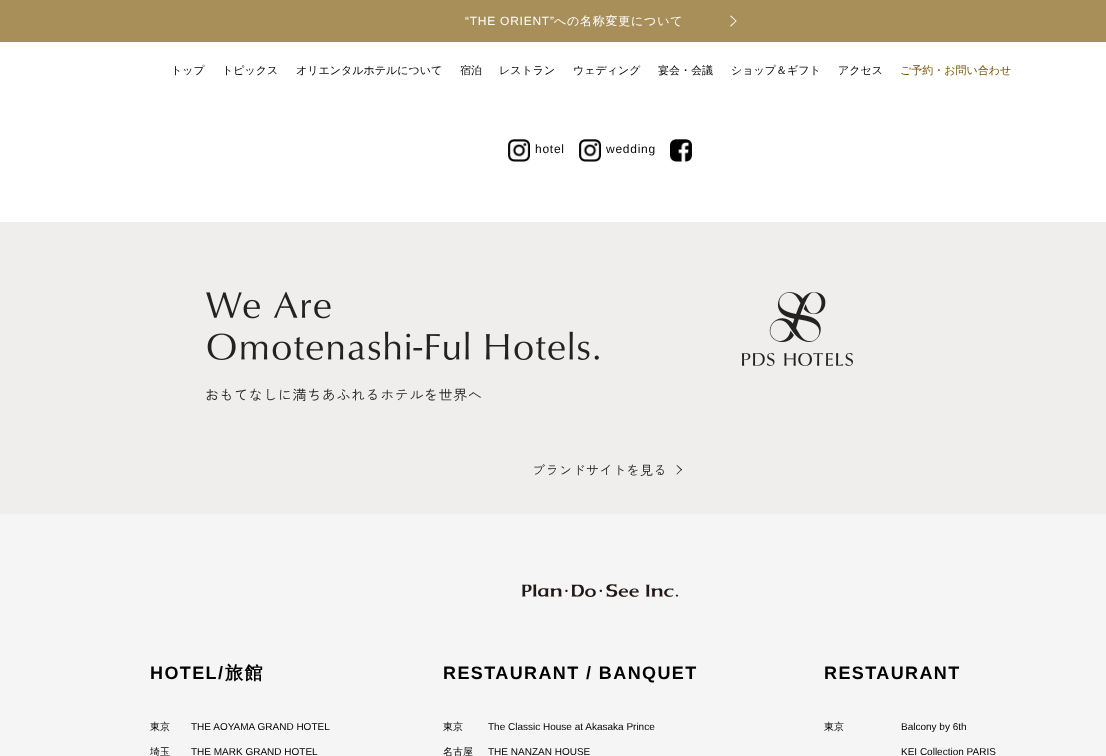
async function draw(canvas) {
  canvas.width = 1106
  canvas.height = 756
  const ctx = canvas.getContext('2d')
  ctx.miterLimit = 4
  ctx.fontKerning = 'normal'
  async function loadImage(src) {
    const img = new Image()
    img.src = src
    await img.decode()
    return img
  }

  ctx.fillStyle = '#fff'
  ctx.fillRect(0, 0, 1106, 756)
  ctx.fillStyle = '#a88f59'
  ctx.fillRect(0, 0, 1106, 42)
  ctx.letterSpacing = '0.75px'
  ctx.font = '12px Liberation Sans'
  ctx.fillStyle = '#fff'
  ctx.fillText('“THE ORIENT”', 465, 25)
  ctx.font = '500 12px WenQuanYi Zen Hei'
  ctx.fillText('への名称変更について', 554, 25)
  ctx.beginPath()
  ctx.moveTo(736.5, 21)
  ctx.lineTo(731, 26.5)
  ctx.lineTo(730, 26)
  ctx.lineTo(736, 20.5)
  ctx.closePath()
  ctx.fill()
  ctx.beginPath()
  ctx.moveTo(736.5, 21)
  ctx.lineTo(736, 21.5)
  ctx.lineTo(730, 16)
  ctx.lineTo(731, 15.5)
  ctx.closePath()
  ctx.fill()
  ctx.letterSpacing = '0px'
  ctx.font = '500 11px WenQuanYi Zen Hei'
  ctx.fillStyle = '#000'
  ctx.fillText('トップ', 171, 74)
  ctx.fillText('トピックス', 222, 74)
  ctx.fillText('オリエンタルホテルについて', 296, 74)
  ctx.fillText('宿泊', 460, 74)
  ctx.fillText('レストラン', 499, 74)
  ctx.fillText('ウェディング', 573, 74)
  ctx.fillText('宴会・会議', 658, 74)
  ctx.fillText('ショップ＆ギフト', 731, 74)
  ctx.fillText('アクセス', 838, 74)
  ctx.fillStyle = '#795200'
  ctx.fillText('ご予約・お問い合わせ', 900, 74)
  ctx.drawImage(await loadImage('image0.png'), 508, 139, 22, 23)
  ctx.letterSpacing = '0.75px'
  ctx.font = '12px Liberation Sans'
  ctx.fillStyle = '#000'
  ctx.fillText('hotel', 535, 153)
  ctx.drawImage(await loadImage('image1.png'), 579, 139, 22, 23)
  ctx.fillText('wedding', 606, 153)
  ctx.drawImage(await loadImage('image2.png'), 670, 139, 22, 23)
  ctx.fillStyle = '#efeeec'
  ctx.fillRect(0, 222, 1106, 292)
  ctx.drawImage(await loadImage('image3.png'), 742, 292, 111, 74)
  ctx.drawImage(await loadImage('image4.png'), 206, 292, 393, 68)
  ctx.letterSpacing = '0.6px'
  ctx.font = '14px Zen Kaku Gothic New'
  ctx.fillStyle = '#222'
  ctx.fillText('おもてなしに満ちあふれるホテルを世界へ', 205, 400)
  ctx.letterSpacing = '0.5px'
  ctx.font = '13px Zen Kaku Gothic New'
  ctx.fillText('ブランドサイトを見る', 532, 475)
  ctx.beginPath()
  ctx.moveTo(676.5, 465.5)
  ctx.lineTo(677, 465)
  ctx.lineTo(682, 469.5)
  ctx.lineTo(681.5, 470.5)
  ctx.closePath()
  ctx.fill()
  ctx.beginPath()
  ctx.moveTo(676.5, 474)
  ctx.lineTo(681.5, 469)
  ctx.lineTo(682, 469.5)
  ctx.lineTo(677, 474.5)
  ctx.closePath()
  ctx.fill()
  ctx.fillStyle = '#f5f5f5'
  ctx.fillRect(0, 514, 1106, 242)
  ctx.drawImage(await loadImage('image5.png'), 521, 584, 158, 13)
  ctx.letterSpacing = '1.4px'
  ctx.font = 'bold 18px Liberation Sans'
  ctx.fillStyle = '#000'
  ctx.fillText('HOTEL/', 150, 679)
  ctx.font = 'bold 18px WenQuanYi Zen Hei'
  ctx.fillText('旅館', 225, 679)
  ctx.letterSpacing = '0px'
  ctx.font = '500 10px WenQuanYi Zen Hei'
  ctx.fillText('東京', 150, 730)
  ctx.font = '10px Liberation Sans'
  ctx.fillText('THE AOYAMA GRAND HOTEL', 191, 730)
  ctx.font = '500 10px WenQuanYi Zen Hei'
  ctx.fillText('埼玉', 150, 755)
  ctx.font = '10px Liberation Sans'
  ctx.fillText('THE MARK GRAND HOTEL', 191, 755)
  ctx.letterSpacing = '1.4px'
  ctx.font = 'bold 18px Liberation Sans'
  ctx.fillText('RESTAURANT / BANQUET', 443, 679)
  ctx.letterSpacing = '0px'
  ctx.font = '500 10px WenQuanYi Zen Hei'
  ctx.fillText('東京', 443, 730)
  ctx.font = '10px Liberation Sans'
  ctx.fillText('The Classic House at Akasaka Prince', 488, 730)
  ctx.font = '500 10px WenQuanYi Zen Hei'
  ctx.fillText('名古屋', 443, 755)
  ctx.font = '10px Liberation Sans'
  ctx.fillText('THE NANZAN HOUSE', 488, 755)
  ctx.letterSpacing = '1.4px'
  ctx.font = 'bold 18px Liberation Sans'
  ctx.fillText('RESTAURANT', 824, 679)
  ctx.letterSpacing = '0px'
  ctx.font = '500 10px WenQuanYi Zen Hei'
  ctx.fillText('東京', 824, 730)
  ctx.font = '10px Liberation Sans'
  ctx.fillText('Balcony by 6th', 901, 730)
  ctx.fillText('KEI Collection PARIS', 901, 755)
}

draw(document.querySelector('canvas'))
